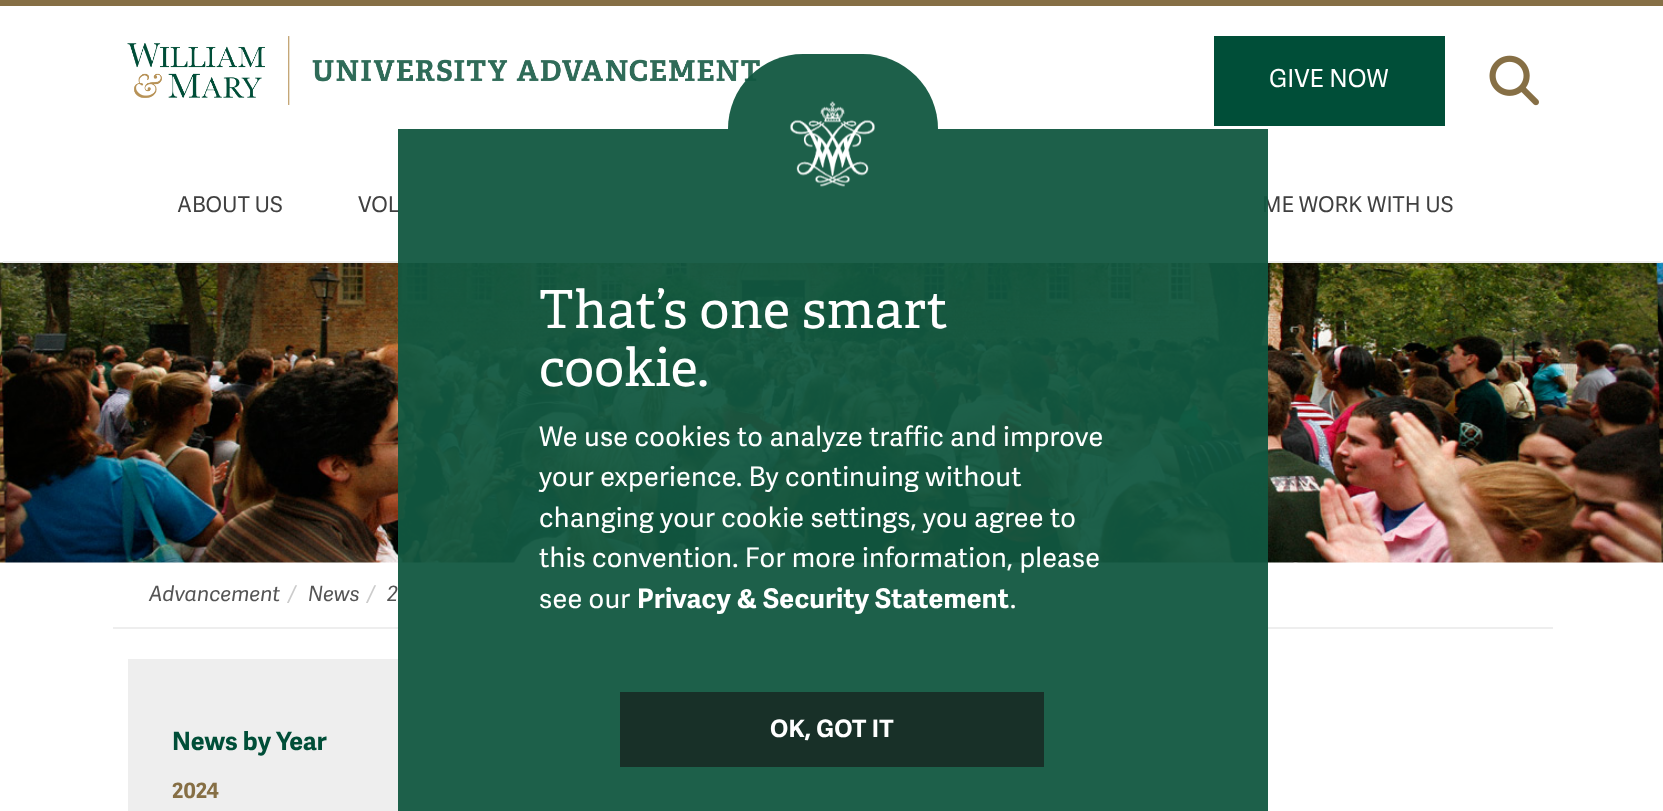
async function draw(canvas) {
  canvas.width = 1663
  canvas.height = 811
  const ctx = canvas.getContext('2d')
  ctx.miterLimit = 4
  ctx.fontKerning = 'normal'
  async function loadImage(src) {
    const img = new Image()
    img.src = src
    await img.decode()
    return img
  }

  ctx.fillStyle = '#fff'
  ctx.fillRect(0, 0, 1663, 811)
  ctx.fillStyle = '#866f45'
  ctx.fillRect(0, 0, 1663, 6)
  ctx.drawImage(await loadImage('image3.png'), 0, 262, 1663, 301)
  ctx.fillStyle = '#eee'
  ctx.fillRect(3, 261, 1658, 2)
  ctx.drawImage(await loadImage('image0.png'), 127, 36, 163, 69)
  ctx.drawImage(await loadImage('image1.png'), 312, 59, 448, 23)
  ctx.fillStyle = '#004e38'
  ctx.fillRect(1214, 36, 231, 90)
  ctx.font = '24.75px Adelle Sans'
  ctx.fillStyle = '#fff'
  ctx.fillText('GIVE NOW', 1269, 87)
  ctx.drawImage(await loadImage('image2.png'), 1489, 55, 50, 51)
  ctx.font = '21.75px Adelle Sans'
  ctx.fillStyle = '#404040'
  ctx.fillText('ABOUT US', 177, 212)
  ctx.fillText('VOL', 358, 212)
  ctx.fillText('ME WORK WITH US', 1262, 212)
  ctx.fillStyle = '#eee'
  ctx.fillRect(113, 627, 1440, 2)
  ctx.font = 'italic 21px Adelle Sans'
  ctx.fillStyle = '#555'
  ctx.fillText('Advancement', 149, 601)
  ctx.fillStyle = '#ccc'
  ctx.fillText('/', 288, 601)
  ctx.fillStyle = '#555'
  ctx.fillText('News', 308, 601)
  ctx.fillStyle = '#ccc'
  ctx.fillText('/', 367, 601)
  ctx.fillStyle = '#555'
  ctx.fillText('2', 387, 601)
  ctx.fillStyle = '#eee'
  ctx.fillRect(128, 659, 448, 152)
  ctx.font = 'bold 25.25px Adelle Sans'
  ctx.fillStyle = '#004e38'
  ctx.fillText('News by Year', 172, 750)
  ctx.font = 'bold 21px Adelle Sans'
  ctx.fillStyle = '#866f45'
  ctx.fillText('2024', 172, 798)
  ctx.fillStyle = '#115740f2'
  ctx.beginPath()
  ctx.roundRect(728, 54, 210, 75, [105, 105, 0, 0])
  ctx.fill()
  ctx.fillRect(398, 129, 870, 682)
  ctx.drawImage(await loadImage('image4.png'), 790, 101, 85, 86)
  ctx.letterSpacing = '0.25px'
  ctx.font = '52.5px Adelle'
  ctx.fillStyle = '#fff'
  ctx.fillText('That’s one smart', 539, 328)
  ctx.fillText('cookie.', 539, 386)
  ctx.font = '27px Adelle Sans'
  ctx.fillText('We use cookies to analyze traffic and improve', 539, 446)
  ctx.fillText('your experience. By continuing without', 539, 486)
  ctx.fillText('changing your cookie settings, you agree to', 539, 527)
  ctx.fillText('this convention. For more information, please', 539, 567)
  ctx.fillText('see our', 539, 608)
  ctx.font = 'bold 27px Adelle Sans'
  ctx.fillText('Privacy & Security Statement', 637, 608)
  ctx.font = '27px Adelle Sans'
  ctx.fillText('.', 1010, 608)
  ctx.fillStyle = '#183028'
  ctx.fillRect(620, 692, 424, 75)
  ctx.font = 'bold 24px Adelle Sans'
  ctx.fillStyle = '#fff'
  ctx.fillText('OK, GOT IT', 770, 737)
}

draw(document.querySelector('canvas'))
